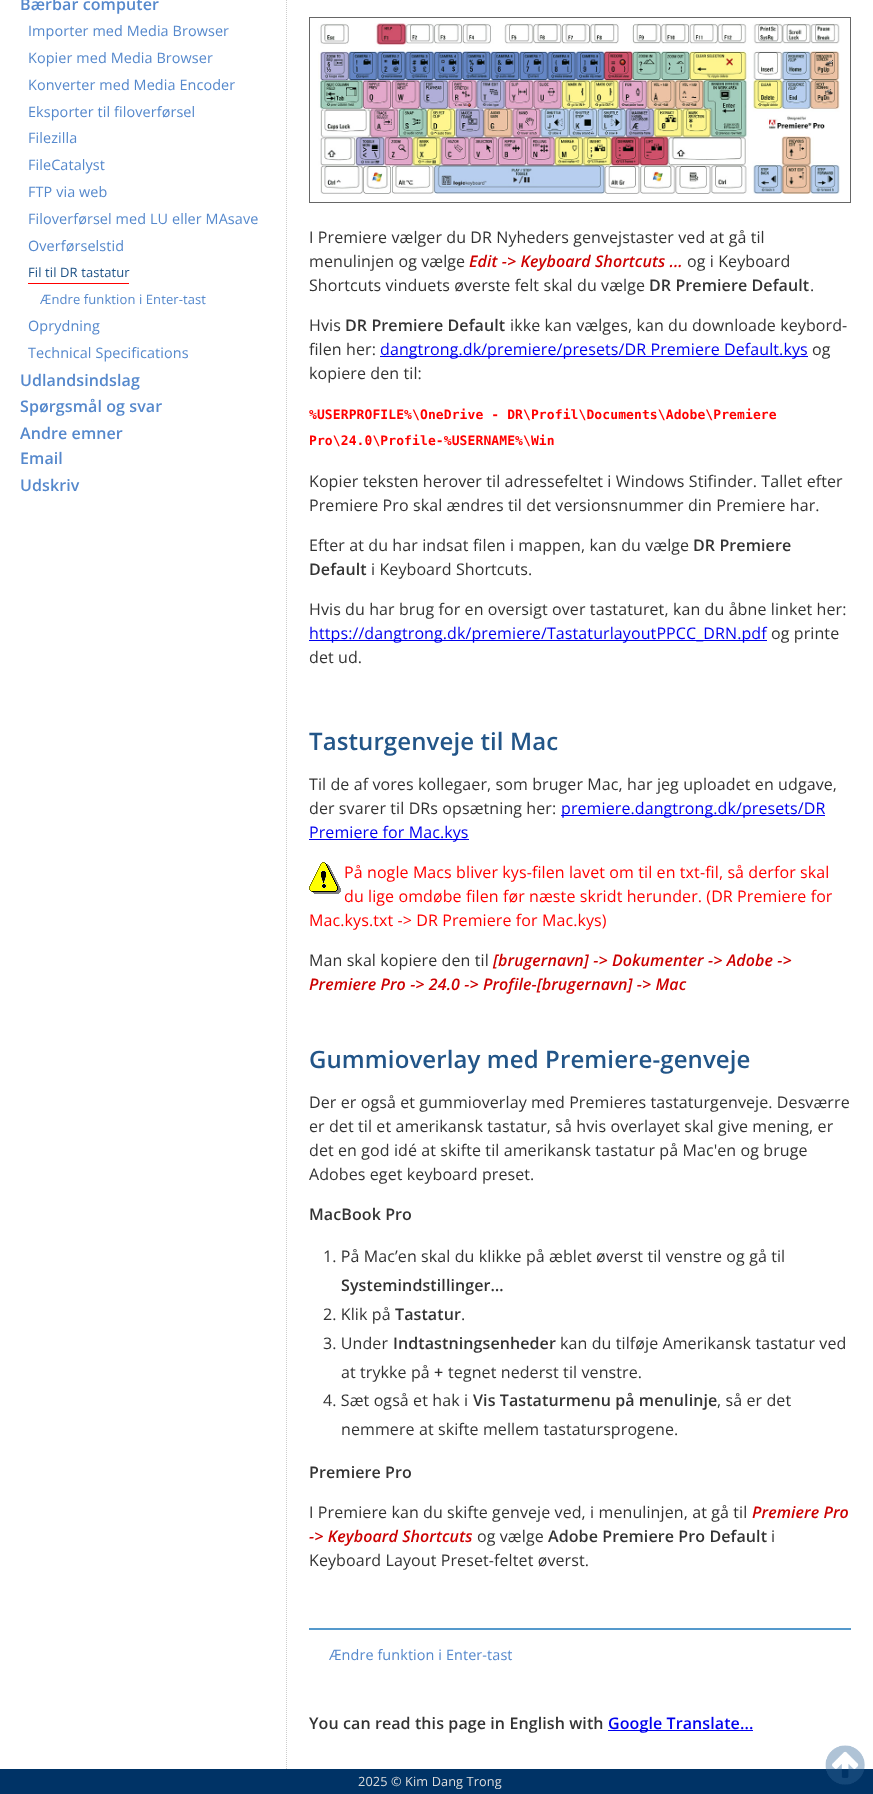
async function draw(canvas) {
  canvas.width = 873
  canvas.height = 1794
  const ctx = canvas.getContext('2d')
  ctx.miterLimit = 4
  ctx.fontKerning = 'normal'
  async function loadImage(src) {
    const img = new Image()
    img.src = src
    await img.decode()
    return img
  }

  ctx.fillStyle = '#fff'
  ctx.fillRect(0, 0, 873, 1794)
  ctx.beginPath()
  ctx.moveTo(286.5, -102)
  ctx.lineTo(286.5, 1769)
  ctx.strokeStyle = '#ccc'
  ctx.setLineDash([1, 1])
  ctx.stroke()
  ctx.letterSpacing = '0.1px'
  ctx.font = '600 16px Open Sans'
  ctx.fillStyle = '#58c'
  ctx.fillText('Bærbar computer', 20, 10)
  ctx.font = '14.4px Open Sans'
  ctx.fillText('Importer med Media Browser', 28, 36)
  ctx.fillText('Kopier med Media Browser', 28, 63)
  ctx.fillText('Konverter med Media Encoder', 28, 90)
  ctx.fillText('Eksporter til filoverførsel', 28, 117)
  ctx.fillText('Filezilla', 28, 143)
  ctx.fillText('FileCatalyst', 28, 170)
  ctx.fillText('FTP via web', 28, 197)
  ctx.fillText('Filoverførsel med LU eller MAsave', 28, 224)
  ctx.fillText('Overførselstid', 28, 251)
  ctx.fillStyle = '#f00'
  ctx.fillRect(28, 283, 101, 1)
  ctx.font = '13px Open Sans'
  ctx.fillStyle = '#258'
  ctx.fillText('Fil til DR tastatur', 28, 277)
  ctx.fillStyle = '#58c'
  ctx.fillText('Ændre funktion i Enter-tast', 40, 304)
  ctx.font = '14.4px Open Sans'
  ctx.fillText('Oprydning', 28, 331)
  ctx.fillText('Technical Specifications', 28, 358)
  ctx.font = '600 16px Open Sans'
  ctx.fillText('Udlandsindslag', 20, 386)
  ctx.fillText('Spørgsmål og svar', 20, 412)
  ctx.fillText('Andre emner', 20, 439)
  ctx.fillText('Email', 20, 464)
  ctx.fillText('Udskriv', 20, 491)
  ctx.strokeStyle = '#666'
  ctx.setLineDash([])
  ctx.strokeRect(309.5, 17.5, 541, 185)
  ctx.drawImage(await loadImage('image0.png'), 318, 23, 522, 171)
  ctx.font = '16px Open Sans'
  ctx.fillStyle = '#333'
  ctx.fillText('I Premiere vælger du DR Nyheders genvejstaster ved at gå til', 309, 243)
  ctx.fillText('menulinjen og vælge', 309, 267)
  ctx.font = 'italic 600 16px Open Sans'
  ctx.fillStyle = '#c00'
  ctx.fillText('Edit -> Keyboard Shortcuts ...', 469, 267)
  ctx.font = '16px Open Sans'
  ctx.fillStyle = '#333'
  ctx.fillText('og i Keyboard', 687, 267)
  ctx.fillText('Shortcuts vinduets øverste felt skal du vælge', 309, 291)
  ctx.font = '600 16px Open Sans'
  ctx.fillText('DR Premiere Default', 649, 291)
  ctx.font = '16px Open Sans'
  ctx.fillText('.', 810, 291)
  ctx.fillText('Hvis', 309, 331)
  ctx.font = '600 16px Open Sans'
  ctx.fillText('DR Premiere Default', 345, 331)
  ctx.font = '16px Open Sans'
  ctx.fillText('ikke kan vælges, kan du downloade keybord-', 510, 331)
  ctx.fillText('filen her:', 309, 355)
  ctx.fillStyle = '#00e'
  ctx.fillRect(380, 356, 428, 1)
  ctx.fillText('dangtrong.dk/premiere/presets/DR Premiere Default.kys', 380, 355)
  ctx.fillStyle = '#333'
  ctx.fillText('og', 812, 355)
  ctx.fillText('kopiere den til:', 309, 379)
  ctx.font = 'bold 13px DejaVu Sans Mono'
  ctx.fillStyle = '#f00'
  ctx.fillText('%USERPROFILE%\\OneDrive - DR\\Profil\\Documents\\Adobe\\Premiere', 309, 419)
  ctx.fillText('Pro\\24.0\\Profile-%USERNAME%\\Win', 309, 445)
  ctx.font = '16px Open Sans'
  ctx.fillStyle = '#333'
  ctx.fillText('Kopier teksten herover til adressefeltet i Windows Stifinder. Tallet efter', 309, 487)
  ctx.fillText('Premiere Pro skal ændres til det versionsnummer din Premiere har.', 309, 511)
  ctx.fillText('Efter at du har indsat filen i mappen, kan du vælge', 309, 551)
  ctx.font = '600 16px Open Sans'
  ctx.fillText('DR Premiere', 693, 551)
  ctx.fillText('Default', 309, 575)
  ctx.font = '16px Open Sans'
  ctx.fillText('i Keyboard Shortcuts.', 371, 575)
  ctx.fillText('Hvis du har brug for en oversigt over tastaturet, kan du åbne linket her:', 309, 615)
  ctx.fillStyle = '#00e'
  ctx.fillRect(309, 640, 458, 1)
  ctx.fillText('https://dangtrong.dk/premiere/TastaturlayoutPPCC_DRN.pdf', 309, 639)
  ctx.fillStyle = '#333'
  ctx.fillText('og printe', 771, 639)
  ctx.fillText('det ud.', 309, 663)
  ctx.font = '600 24px Open Sans'
  ctx.fillStyle = '#258'
  ctx.fillText('Tasturgenveje til Mac', 309, 750)
  ctx.font = '16px Open Sans'
  ctx.fillStyle = '#333'
  ctx.fillText('Til de af vores kollegaer, som bruger Mac, har jeg uploadet en udgave,', 309, 790)
  ctx.fillText('der svarer til DRs opsætning her:', 309, 814)
  ctx.fillStyle = '#00e'
  ctx.fillRect(561, 815, 264, 1)
  ctx.fillText('premiere.dangtrong.dk/presets/DR', 561, 814)
  ctx.fillRect(309, 839, 160, 1)
  ctx.fillText('Premiere for Mac.kys', 309, 838)
  ctx.drawImage(await loadImage('image1.png'), 309, 862, 32, 32)
  ctx.fillStyle = '#f00'
  ctx.fillText('På nogle Macs bliver kys-filen lavet om til en txt-fil, så derfor skal', 344, 878)
  ctx.fillText('du lige omdøbe filen før næste skridt herunder. (DR Premiere for', 344, 902)
  ctx.fillText('Mac.kys.txt -> DR Premiere for Mac.kys)', 309, 926)
  ctx.fillStyle = '#333'
  ctx.fillText('Man skal kopiere den til', 309, 966)
  ctx.font = 'italic 600 16px Open Sans'
  ctx.fillStyle = '#c00'
  ctx.fillText('[brugernavn] -> Dokumenter -> Adobe ->', 493, 966)
  ctx.fillText('Premiere Pro -> 24.0 -> Profile-[brugernavn] -> Mac', 309, 990)
  ctx.font = '600 24px Open Sans'
  ctx.fillStyle = '#258'
  ctx.fillText('Gummioverlay med Premiere-genveje', 309, 1068)
  ctx.font = '16px Open Sans'
  ctx.fillStyle = '#333'
  ctx.fillText('Der er også et gummioverlay med Premieres tastaturgenveje. Desværre', 309, 1108)
  ctx.fillText('er det til et amerikansk tastatur, så hvis overlayet skal give mening, er', 309, 1132)
  ctx.fillText('det en god idé at skifte til amerikansk tastatur på Mac\'en og bruge', 309, 1156)
  ctx.fillText('Adobes eget keyboard preset.', 309, 1180)
  ctx.font = '600 16px Open Sans'
  ctx.fillText('MacBook Pro', 309, 1220)
  ctx.font = '16px Open Sans'
  ctx.fillText('1. På Mac’en skal du klikke på æblet øverst til venstre og gå til', 323, 1262)
  ctx.font = '600 16px Open Sans'
  ctx.fillText('Systemindstillinger…', 341, 1291)
  ctx.font = '16px Open Sans'
  ctx.fillText('2. Klik på', 323, 1320)
  ctx.font = '600 16px Open Sans'
  ctx.fillText('Tastatur', 395, 1320)
  ctx.font = '16px Open Sans'
  ctx.fillText('.', 461, 1320)
  ctx.fillText('3. Under', 323, 1349)
  ctx.font = '600 16px Open Sans'
  ctx.fillText('Indtastningsenheder', 393, 1349)
  ctx.font = '16px Open Sans'
  ctx.fillText('kan du tilføje Amerikansk tastatur ved', 560, 1349)
  ctx.fillText('at trykke på', 341, 1378)
  ctx.font = '600 16px Open Sans'
  ctx.fillText('+', 434, 1378)
  ctx.font = '16px Open Sans'
  ctx.fillText('tegnet nederst til venstre.', 448, 1378)
  ctx.fillText('4. Sæt også et hak i', 323, 1406)
  ctx.font = '600 16px Open Sans'
  ctx.fillText('Vis Tastaturmenu på menulinje', 473, 1406)
  ctx.font = '16px Open Sans'
  ctx.fillText(', så er det', 717, 1406)
  ctx.fillText('nemmere at skifte mellem tastatursprogene.', 341, 1435)
  ctx.font = '600 16px Open Sans'
  ctx.fillText('Premiere Pro', 309, 1478)
  ctx.font = '16px Open Sans'
  ctx.fillText('I Premiere kan du skifte genveje ved, i menulinjen, at gå til', 309, 1518)
  ctx.font = 'italic 600 16px Open Sans'
  ctx.fillStyle = '#c00'
  ctx.fillText('Premiere Pro', 752, 1518)
  ctx.fillText('-> Keyboard Shortcuts', 309, 1542)
  ctx.font = '16px Open Sans'
  ctx.fillStyle = '#333'
  ctx.fillText('og vælge', 477, 1542)
  ctx.font = '600 16px Open Sans'
  ctx.fillText('Adobe Premiere Pro Default', 548, 1542)
  ctx.font = '16px Open Sans'
  ctx.fillText('i', 771, 1542)
  ctx.fillText('Keyboard Layout Preset-feltet øverst.', 309, 1566)
  ctx.fillStyle = '#59c'
  ctx.fillRect(309, 1628, 542, 2)
  ctx.font = '14.4px Open Sans'
  ctx.fillStyle = '#58c'
  ctx.fillText('Ændre funktion i Enter-tast', 329, 1660)
  ctx.font = '600 16px Open Sans'
  ctx.fillStyle = '#333'
  ctx.fillText('You can read this page in English with', 309, 1729)
  ctx.fillStyle = '#00e'
  ctx.fillRect(608, 1730, 145, 1)
  ctx.fillText('Google Translate...', 608, 1729)
  ctx.fillStyle = '#036'
  ctx.fillRect(0, 1769, 873, 25)
  ctx.font = '12.75px Open Sans'
  ctx.fillStyle = '#ddd'
  ctx.fillText('2025 © Kim Dang Trong', 358, 1786)
  ctx.drawImage(await loadImage('image2.png'), 825, 1745, 40, 40)
}

draw(document.querySelector('canvas'))
